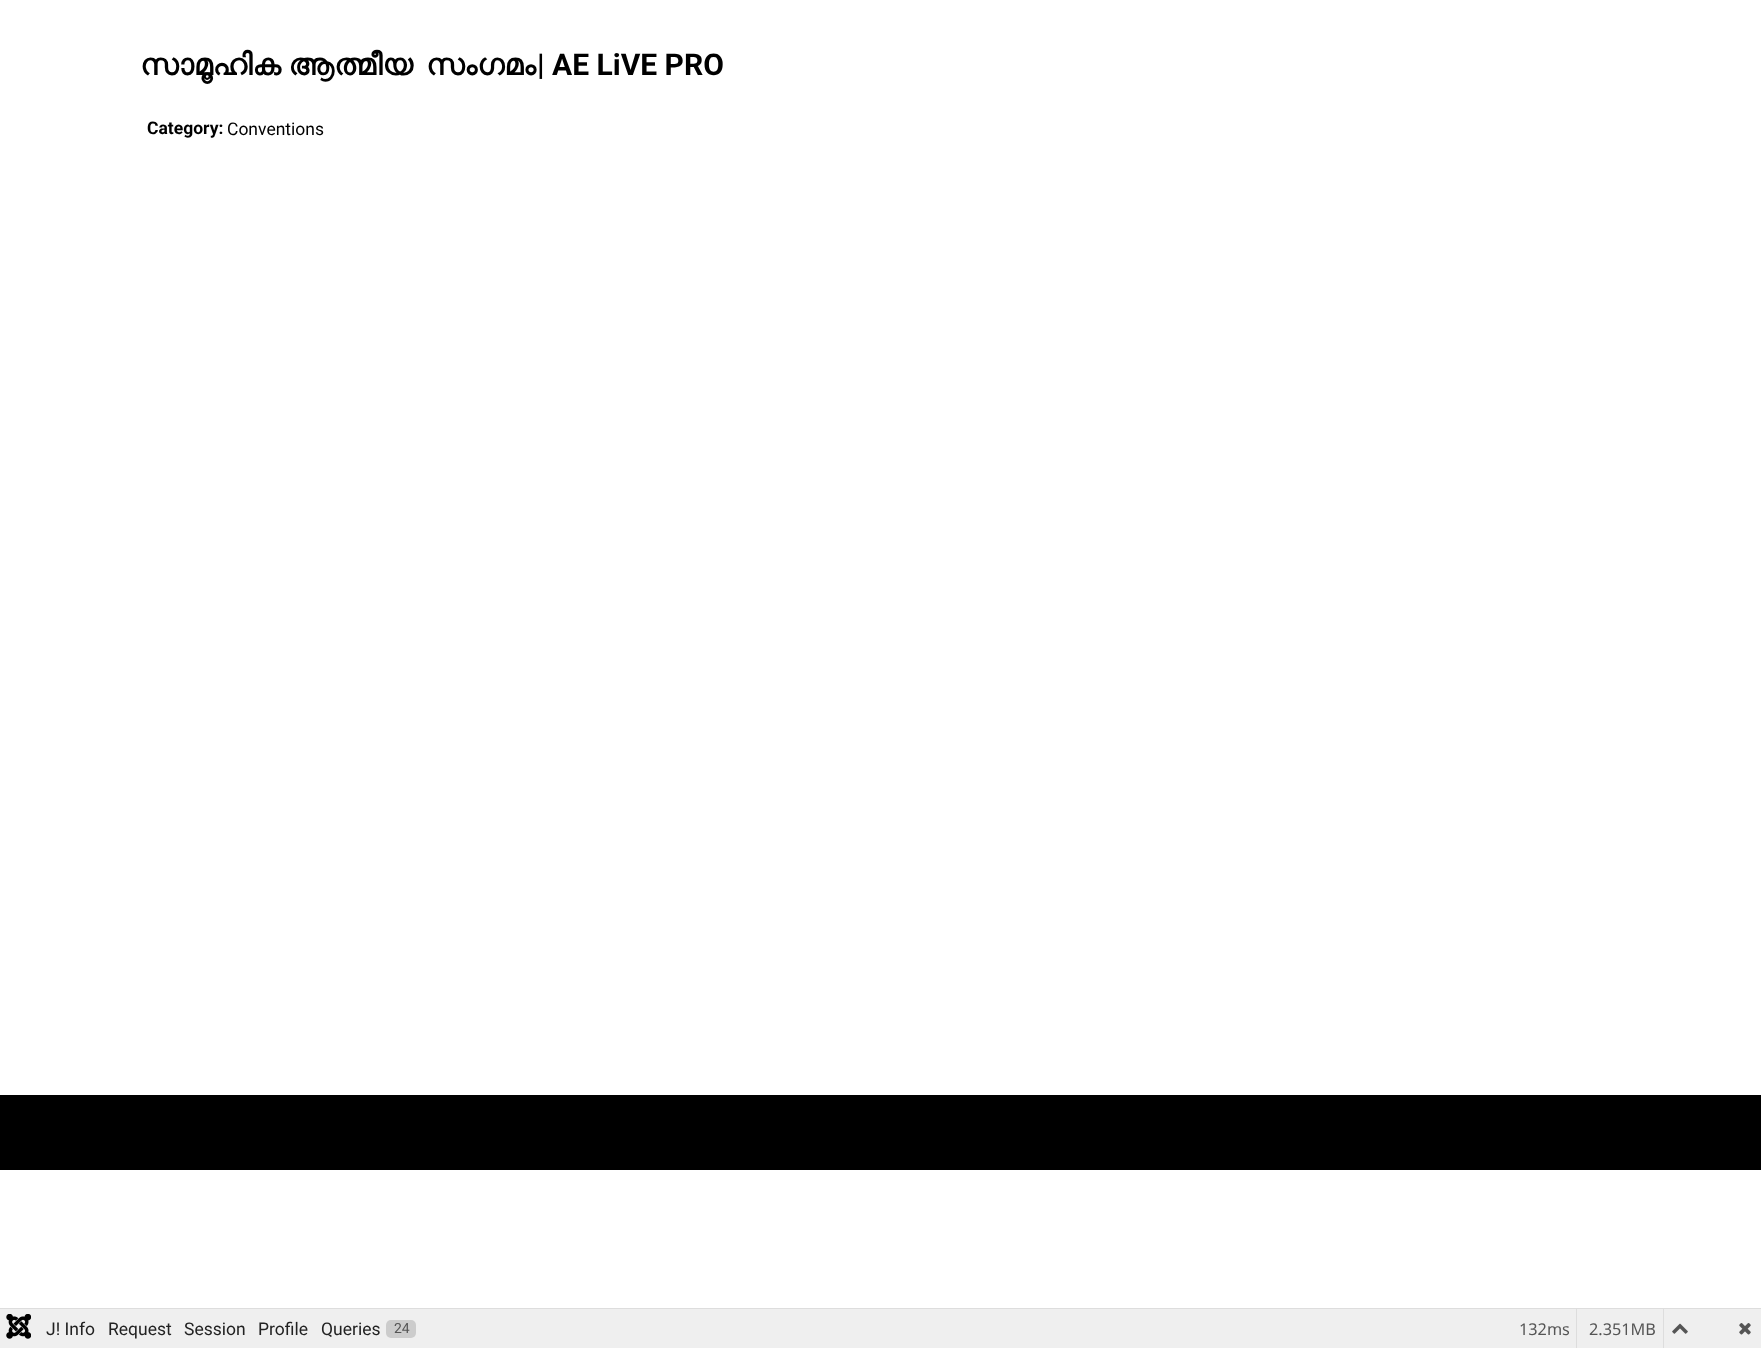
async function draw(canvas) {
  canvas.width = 1761
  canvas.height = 1348
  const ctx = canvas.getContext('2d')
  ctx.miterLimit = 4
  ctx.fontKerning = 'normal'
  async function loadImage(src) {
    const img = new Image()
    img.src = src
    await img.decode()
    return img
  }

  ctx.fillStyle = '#fff'
  ctx.fillRect(0, 0, 1761, 1348)
  ctx.font = 'bold 30px FreeSans'
  ctx.fillStyle = '#000'
  ctx.fillText('സാമൂഹിക ആത്മീയ', 140, 75)
  ctx.fillText('സംഗമം', 426, 75)
  ctx.font = 'bold 30px Roboto'
  ctx.fillText('| AE LiVE PRO', 537, 75)
  ctx.font = 'bold 17.5px Roboto'
  ctx.fillText('Category:', 147, 134)
  ctx.font = '17.5px Roboto'
  ctx.fillText('Conventions', 227, 135)
  ctx.fillRect(0, 1095, 1761, 75)
  ctx.fillStyle = '#ddd'
  ctx.fillRect(0, 1308, 1761, 1)
  ctx.fillStyle = '#efefef'
  ctx.fillRect(0, 1309, 1761, 39)
  ctx.drawImage(await loadImage('image0.png'), 6, 1314, 25, 25)
  ctx.fillStyle = '#222'
  ctx.fillText('J! Info', 46, 1335)
  ctx.fillText('Request', 108, 1335)
  ctx.fillText('Session', 184, 1335)
  ctx.fillText('Profile', 258, 1335)
  ctx.fillText('Queries', 321, 1335)
  ctx.fillStyle = '#ccc'
  ctx.beginPath()
  ctx.roundRect(386, 1320, 30, 18, 5)
  ctx.fill()
  ctx.font = '14px Roboto'
  ctx.fillStyle = '#555'
  ctx.fillText('24', 394, 1333)
  ctx.fillStyle = '#ddd'
  ctx.fillRect(1576, 1309, 1, 39)
  ctx.font = '16.25px Noto Sans'
  ctx.fillStyle = '#555'
  ctx.fillText('132ms', 1519, 1335)
  ctx.fillStyle = '#ddd'
  ctx.fillRect(1663, 1309, 1, 39)
  ctx.fillStyle = '#555'
  ctx.fillText('2.351MB', 1589, 1335)
  ctx.drawImage(await loadImage('image1.png'), 1672, 1323, 16, 11)
  ctx.drawImage(await loadImage('image2.png'), 1739, 1323, 12, 12)
}

draw(document.querySelector('canvas'))
